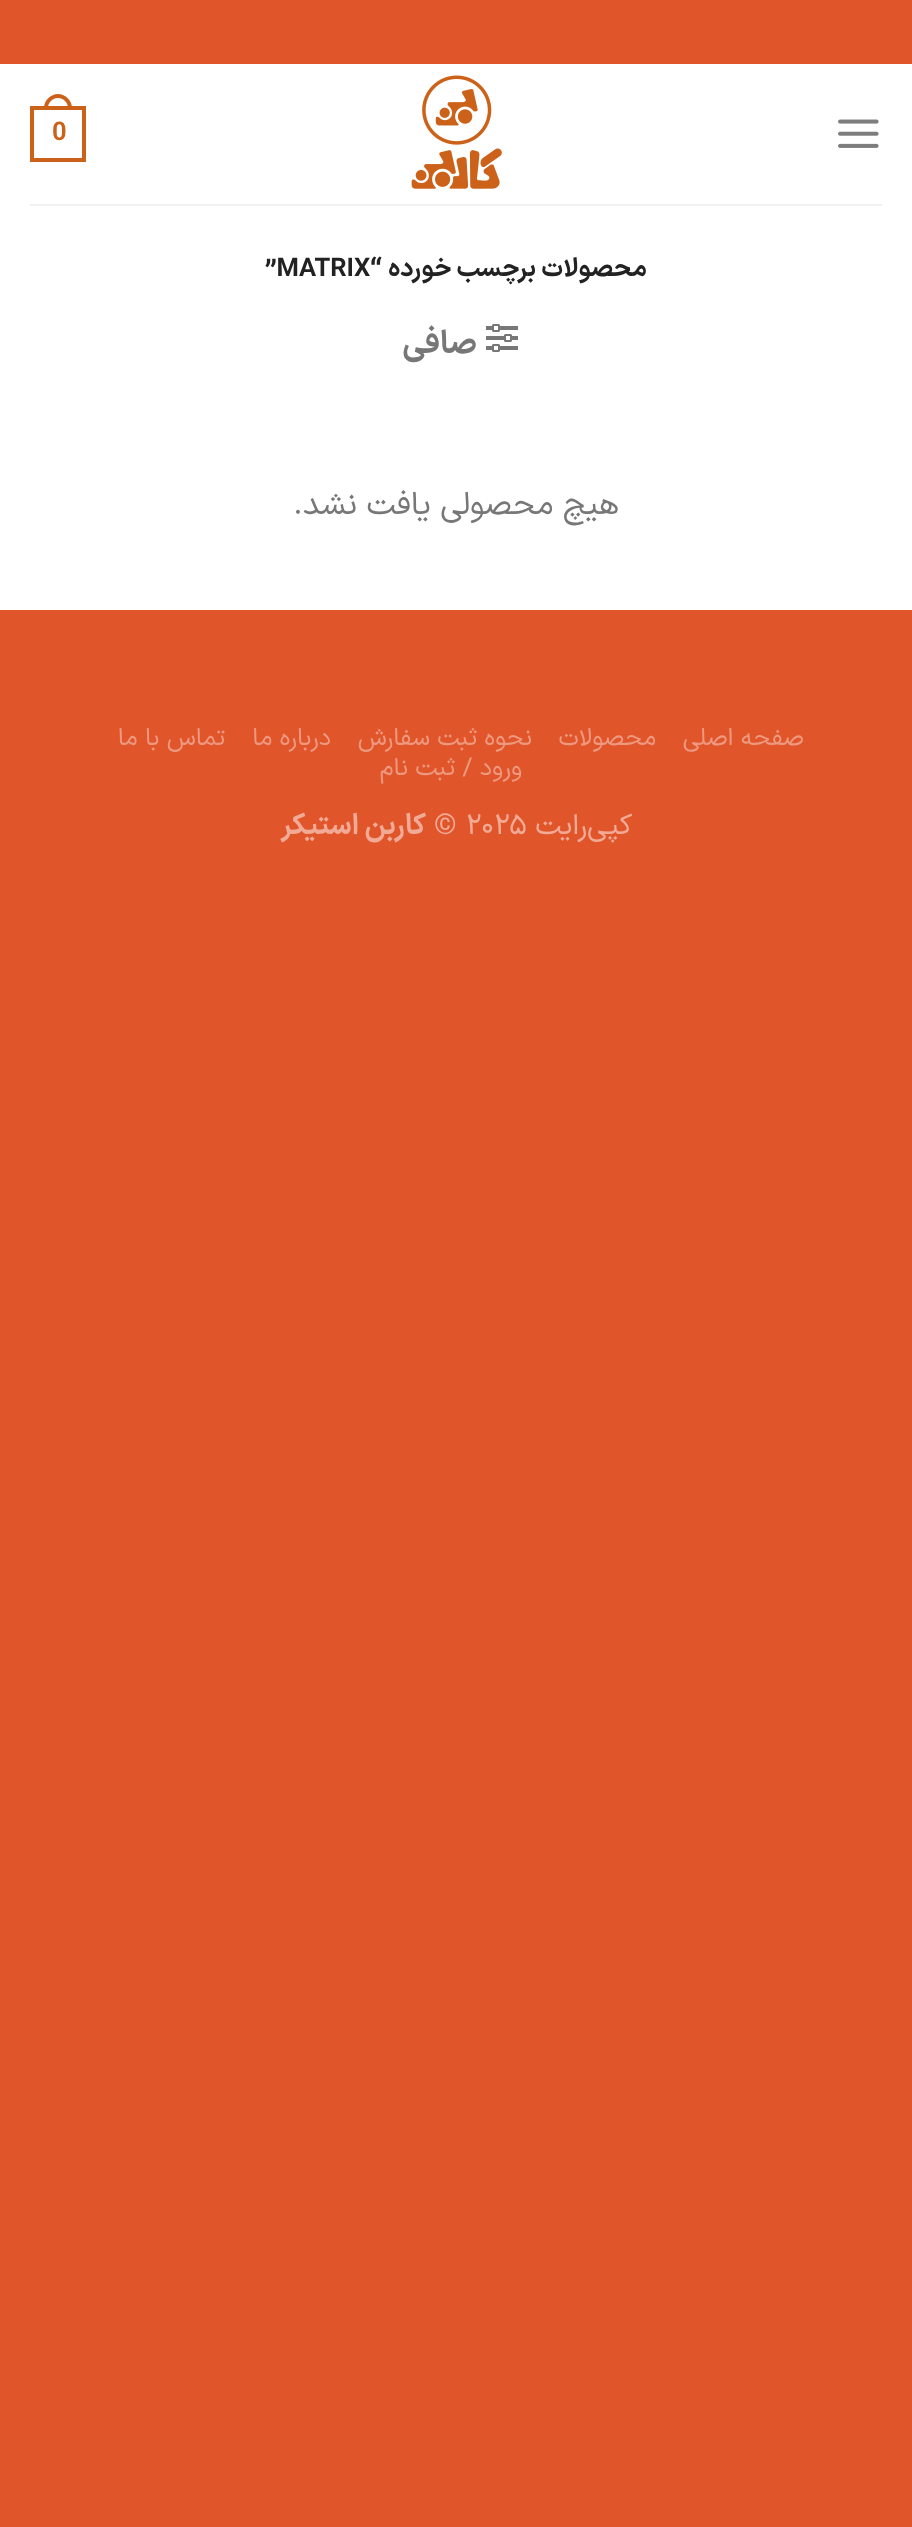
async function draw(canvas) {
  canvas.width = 912
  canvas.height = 2527
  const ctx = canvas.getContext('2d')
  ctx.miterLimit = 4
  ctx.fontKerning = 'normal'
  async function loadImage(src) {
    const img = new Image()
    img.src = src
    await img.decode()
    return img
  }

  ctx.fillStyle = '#e1552b'
  ctx.fillRect(0, 0, 912, 2527)
  ctx.fillStyle = '#fff'
  ctx.fillRect(0, 64, 912, 546)
  ctx.drawImage(await loadImage('image0.png'), 838, 119, 41, 29)
  ctx.drawImage(await loadImage('image1.png'), 411, 75, 91, 114)
  ctx.strokeStyle = '#cc611a'
  ctx.lineWidth = 4
  ctx.strokeRect(32, 108, 52, 52)
  ctx.fillStyle = '#cc611a'
  ctx.beginPath()
  ctx.moveTo(58, 94)
  ctx.bezierCurveTo(65.5, 94, 72, 100.5, 72, 108)
  ctx.lineTo(72, 110)
  ctx.lineTo(44, 110)
  ctx.lineTo(44, 108)
  ctx.bezierCurveTo(44, 100.5, 50.5, 94, 58, 94)
  ctx.closePath()
  ctx.moveTo(58, 98)
  ctx.bezierCurveTo(63.5, 98, 68, 102.5, 68, 108)
  ctx.lineTo(68, 110)
  ctx.lineTo(48, 110)
  ctx.lineTo(48, 108)
  ctx.bezierCurveTo(48, 102.5, 52.5, 98, 58, 98)
  ctx.closePath()
  ctx.fill('evenodd')
  ctx.font = 'bold 25.6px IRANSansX'
  ctx.fillText('0', 52, 140)
  ctx.fillStyle = '#f1f1f1'
  ctx.fillRect(30, 204, 852, 2)
  ctx.direction = 'rtl'
  ctx.fillStyle = '#222'
  ctx.fillText('محصولات برچسب خورده', 647, 276)
  ctx.direction = 'ltr'
  ctx.fillText('”MATRIX“', 265, 276)
  ctx.drawImage(await loadImage('image2.png'), 486, 324, 32, 28)
  ctx.direction = 'rtl'
  ctx.font = 'bold 32px IRANSansX'
  ctx.fillStyle = '#777'
  ctx.fillText('صافی', 477, 353)
  ctx.font = '32px IRANSansX'
  ctx.fillText('هیچ محصولی یافت نشد.', 619, 514)
  ctx.font = '24.5px IRANSansX'
  ctx.fillStyle = '#ed9980'
  ctx.fillText('صفحه اصلی', 804, 745)
  ctx.fillText('محصولات', 656, 745)
  ctx.fillText('نحوه ثبت سفارش', 532, 745)
  ctx.fillText('درباره ما', 331, 745)
  ctx.fillText('تماس با ما', 225, 745)
  ctx.fillText('ورود / ثبت نام', 522, 775)
  ctx.font = '28.75px IRANSansX'
  ctx.fillStyle = '#f0aa95'
  ctx.fillText('کپی‌رایت', 632, 834)
  ctx.direction = 'ltr'
  ctx.font = '28.75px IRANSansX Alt'
  ctx.fillText('2025', 466, 834)
  ctx.font = '28.75px IRANSansX'
  ctx.fillText('©', 434, 834)
  ctx.direction = 'rtl'
  ctx.font = 'bold 28.75px IRANSansX'
  ctx.fillText('کاربن استیکر', 426, 834)
}

draw(document.querySelector('canvas'))
